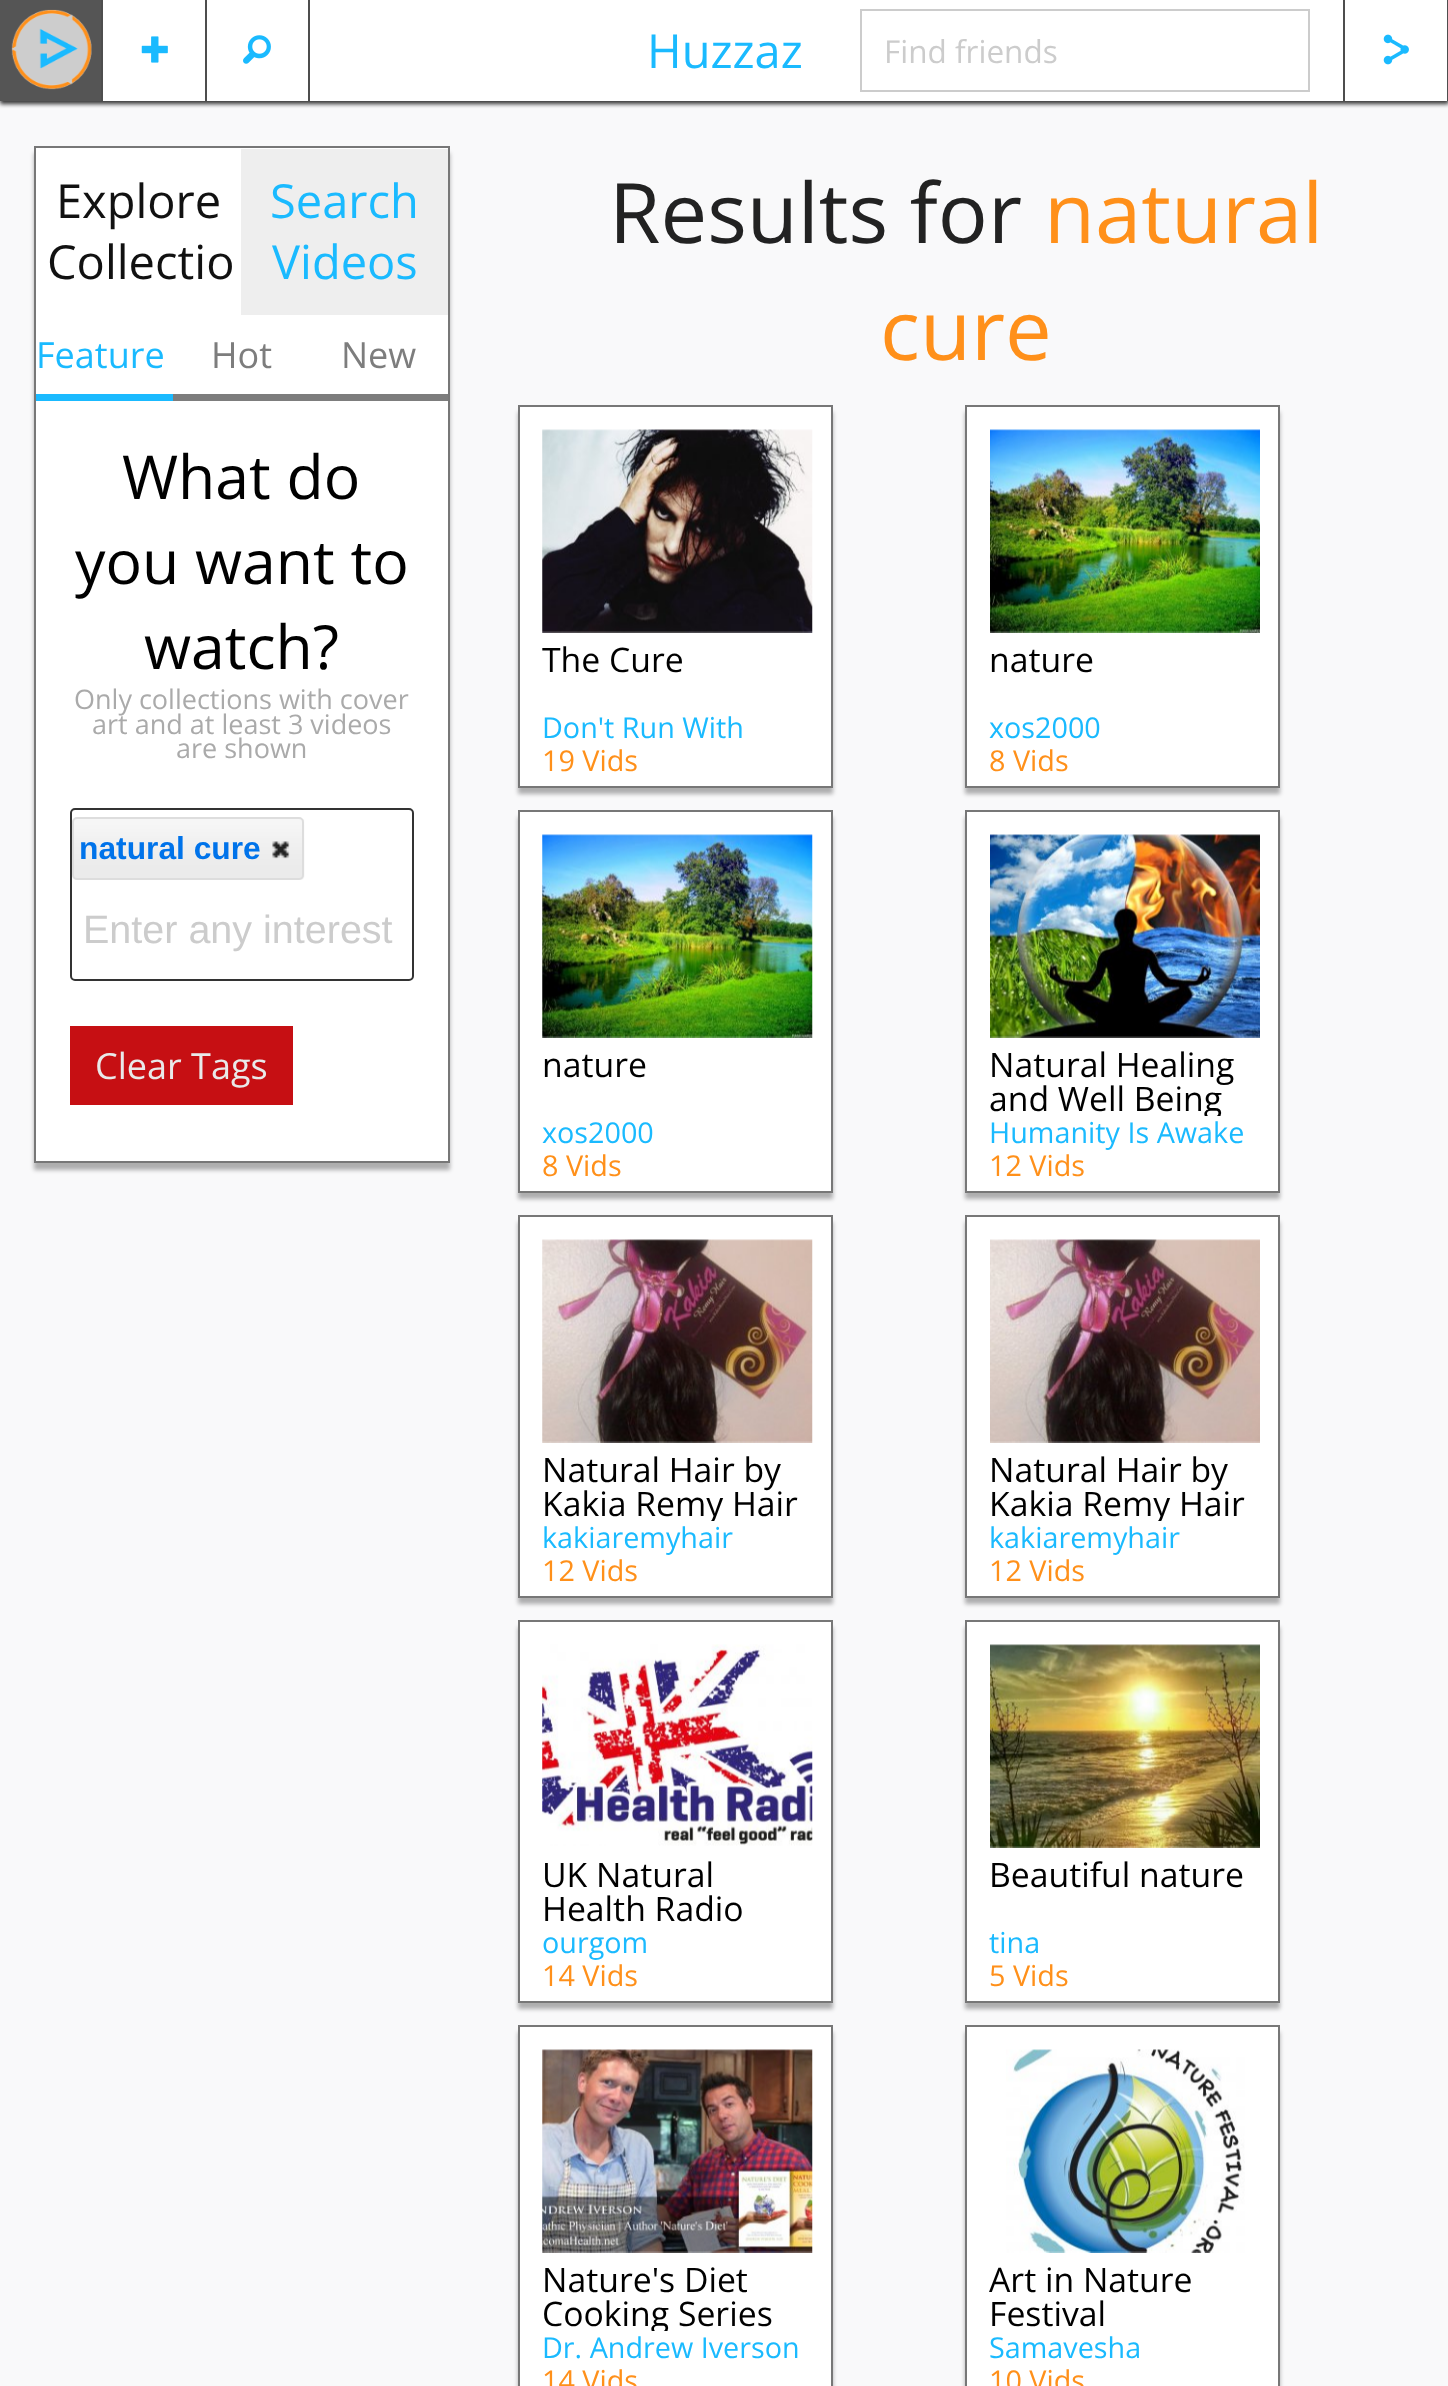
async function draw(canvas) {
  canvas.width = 1448
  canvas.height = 2386
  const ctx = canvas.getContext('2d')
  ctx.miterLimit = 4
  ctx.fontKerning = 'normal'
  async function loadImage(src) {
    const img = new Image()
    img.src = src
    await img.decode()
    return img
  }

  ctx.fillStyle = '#f9f9fa'
  ctx.fillRect(0, 0, 1448, 2386)
  ctx.fillStyle = '#333'
  ctx.filter = 'blur(2px)'
  ctx.beginPath()
  ctx.rect(0, 2, 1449, 102)
  ctx.fill()
  ctx.filter = 'none'
  ctx.fillStyle = '#fff'
  ctx.fillRect(103, 0, 1344, 101)
  ctx.fillStyle = '#555'
  ctx.fillRect(0, 0, 101, 101)
  ctx.drawImage(await loadImage('image0.png'), 11, 9, 81, 81)
  ctx.fillStyle = '#4e4e4e'
  ctx.fillRect(101, 0, 2, 101)
  ctx.drawImage(await loadImage('image1.png'), 141, 36, 27, 27)
  ctx.fillRect(205, 0, 2, 101)
  ctx.drawImage(await loadImage('image2.png'), 243, 35, 28, 29)
  ctx.fillRect(308, 0, 2, 101)
  ctx.font = '47px Open Sans'
  ctx.fillStyle = '#1abaff'
  ctx.fillText('Huzzaz', 647, 68)
  ctx.strokeStyle = '#ccc'
  ctx.lineWidth = 2
  ctx.strokeRect(861, 10, 448, 81)
  ctx.font = '31.5px Open Sans'
  ctx.fillStyle = '#ccc'
  ctx.fillText('Find friends', 884, 63)
  ctx.fillStyle = '#4e4e4e'
  ctx.fillRect(1343, 0, 2, 101)
  ctx.drawImage(await loadImage('image3.png'), 1383, 34, 26, 31)
  ctx.fillRect(1447, 0, 1, 101)
  ctx.fillStyle = '#0000004d'
  ctx.filter = 'blur(2px)'
  ctx.beginPath()
  ctx.rect(34, 153, 416, 1017)
  ctx.fill()
  ctx.filter = 'none'
  ctx.fillStyle = '#fff'
  ctx.beginPath()
  ctx.rect(35, 147, 414, 1015)
  ctx.fill()
  ctx.strokeStyle = '#777'
  ctx.stroke()
  ctx.font = '47px Open Sans'
  ctx.fillStyle = '#111'
  ctx.fillText('Explore', 56, 218)
  ctx.fillText('Collectio', 47, 279)
  ctx.fillStyle = '#eee'
  ctx.fillRect(241, 149, 207, 166)
  ctx.fillStyle = '#1abaff'
  ctx.fillText('Search', 270, 218)
  ctx.fillText('Videos', 272, 279)
  ctx.fillRect(36, 394, 137, 7)
  ctx.font = '36px Open Sans'
  ctx.fillText('Feature', 36, 368)
  ctx.fillStyle = '#7d7d7d'
  ctx.fillRect(173, 394, 275, 7)
  ctx.fillText('Hot', 211, 368)
  ctx.fillText('New', 341, 368)
  ctx.font = '60.75px Open Sans'
  ctx.fillStyle = '#000'
  ctx.fillText('What do', 122, 499)
  ctx.fillText('you want to', 75, 584)
  ctx.fillText('watch?', 144, 669)
  ctx.font = '27px Open Sans'
  ctx.fillStyle = '#aaa'
  ctx.fillText('Only collections with cover', 74, 709)
  ctx.fillText('art and at least 3 videos', 92, 734)
  ctx.fillText('are shown', 176, 758)
  ctx.beginPath()
  ctx.roundRect(71, 809, 342, 171, 4)
  ctx.strokeStyle = '#333'
  ctx.stroke()
  ctx.drawImage(await loadImage('image4.png'), 72, 819, 233, 61)
  ctx.beginPath()
  ctx.roundRect(73, 818, 230, 61, 4)
  ctx.strokeStyle = '#ddd'
  ctx.stroke()
  ctx.font = 'bold 31.75px Liberation Sans'
  ctx.fillStyle = '#0073ea'
  ctx.fillText('natural cure', 79, 859)
  ctx.drawImage(await loadImage('image5.png'), 272, 841, 18, 18)
  ctx.font = '39.5px Liberation Sans'
  ctx.fillStyle = '#ccc'
  ctx.fillText('Enter any interest', 83, 943)
  ctx.fillStyle = '#c60f13'
  ctx.fillRect(70, 1026, 223, 79)
  ctx.font = '36px Open Sans'
  ctx.fillStyle = '#e9e9e9'
  ctx.fillText('Clear Tags', 95, 1079)
  ctx.font = '83.25px Open Sans'
  ctx.fillStyle = '#222'
  ctx.fillText('Results for', 609, 243)
  ctx.fillStyle = '#ff901a'
  ctx.fillText('natural', 1044, 243)
  ctx.fillText('cure', 880, 360)
  ctx.fillStyle = '#0000004d'
  ctx.filter = 'blur(2px)'
  ctx.beginPath()
  ctx.rect(518, 412, 315, 382)
  ctx.fill()
  ctx.filter = 'none'
  ctx.fillStyle = '#fff'
  ctx.beginPath()
  ctx.rect(519, 406, 313, 381)
  ctx.fill()
  ctx.strokeStyle = '#777'
  ctx.stroke()
  ctx.drawImage(await loadImage('image6.png'), 542, 429, 271, 204)
  ctx.save()
  ctx.beginPath()
  ctx.rect(542, 644, 270, 67)
  ctx.clip()
  ctx.font = '33.75px Open Sans'
  ctx.fillStyle = '#000'
  ctx.fillText('The Cure', 542, 672)
  ctx.restore()
  ctx.font = '28.75px Open Sans'
  ctx.fillStyle = '#1abaff'
  ctx.fillText('Don\'t Run With', 542, 738)
  ctx.fillStyle = '#ff901a'
  ctx.fillText('19 Vids', 542, 771)
  ctx.fillStyle = '#0000004d'
  ctx.filter = 'blur(2px)'
  ctx.beginPath()
  ctx.rect(965, 412, 315, 382)
  ctx.fill()
  ctx.filter = 'none'
  ctx.fillStyle = '#fff'
  ctx.beginPath()
  ctx.rect(966, 406, 313, 381)
  ctx.fill()
  ctx.stroke()
  ctx.drawImage(await loadImage('image7.png'), 990, 429, 270, 204)
  ctx.font = '33.75px Open Sans'
  ctx.fillStyle = '#000'
  ctx.fillText('nature', 989, 672)
  ctx.font = '28.75px Open Sans'
  ctx.fillStyle = '#1abaff'
  ctx.fillText('xos2000', 989, 738)
  ctx.fillStyle = '#ff901a'
  ctx.fillText('8 Vids', 989, 771)
  ctx.fillStyle = '#0000004d'
  ctx.filter = 'blur(2px)'
  ctx.beginPath()
  ctx.rect(518, 817, 315, 382)
  ctx.fill()
  ctx.filter = 'none'
  ctx.fillStyle = '#fff'
  ctx.beginPath()
  ctx.rect(519, 811, 313, 381)
  ctx.fill()
  ctx.stroke()
  ctx.drawImage(await loadImage('image8.png'), 542, 834, 271, 204)
  ctx.font = '33.75px Open Sans'
  ctx.fillStyle = '#000'
  ctx.fillText('nature', 542, 1077)
  ctx.font = '28.75px Open Sans'
  ctx.fillStyle = '#1abaff'
  ctx.fillText('xos2000', 542, 1143)
  ctx.fillStyle = '#ff901a'
  ctx.fillText('8 Vids', 542, 1176)
  ctx.fillStyle = '#0000004d'
  ctx.filter = 'blur(2px)'
  ctx.beginPath()
  ctx.rect(965, 817, 315, 382)
  ctx.fill()
  ctx.filter = 'none'
  ctx.fillStyle = '#fff'
  ctx.beginPath()
  ctx.rect(966, 811, 313, 381)
  ctx.fill()
  ctx.stroke()
  ctx.drawImage(await loadImage('image9.png'), 990, 834, 270, 204)
  ctx.font = '33.75px Open Sans'
  ctx.fillStyle = '#000'
  ctx.fillText('Natural Healing', 989, 1077)
  ctx.save()
  ctx.beginPath()
  ctx.rect(990, 1049, 270, 67)
  ctx.clip()
  ctx.fillText('and Well Being', 989, 1111)
  ctx.restore()
  ctx.font = '28.75px Open Sans'
  ctx.fillStyle = '#1abaff'
  ctx.fillText('Humanity Is Awake', 989, 1143)
  ctx.fillStyle = '#ff901a'
  ctx.fillText('12 Vids', 989, 1176)
  ctx.fillStyle = '#0000004d'
  ctx.filter = 'blur(2px)'
  ctx.beginPath()
  ctx.rect(518, 1222, 315, 382)
  ctx.fill()
  ctx.filter = 'none'
  ctx.fillStyle = '#fff'
  ctx.beginPath()
  ctx.rect(519, 1216, 313, 381)
  ctx.fill()
  ctx.stroke()
  ctx.drawImage(await loadImage('image10.png'), 542, 1239, 271, 204)
  ctx.font = '33.75px Open Sans'
  ctx.fillStyle = '#000'
  ctx.fillText('Natural Hair by', 542, 1482)
  ctx.save()
  ctx.beginPath()
  ctx.rect(542, 1454, 270, 67)
  ctx.clip()
  ctx.fillText('Kakia Remy Hair', 542, 1516)
  ctx.restore()
  ctx.font = '28.75px Open Sans'
  ctx.fillStyle = '#1abaff'
  ctx.fillText('kakiaremyhair', 542, 1548)
  ctx.fillStyle = '#ff901a'
  ctx.fillText('12 Vids', 542, 1581)
  ctx.fillStyle = '#0000004d'
  ctx.filter = 'blur(2px)'
  ctx.beginPath()
  ctx.rect(965, 1222, 315, 382)
  ctx.fill()
  ctx.filter = 'none'
  ctx.fillStyle = '#fff'
  ctx.beginPath()
  ctx.rect(966, 1216, 313, 381)
  ctx.fill()
  ctx.stroke()
  ctx.drawImage(await loadImage('image11.png'), 990, 1239, 270, 204)
  ctx.font = '33.75px Open Sans'
  ctx.fillStyle = '#000'
  ctx.fillText('Natural Hair by', 989, 1482)
  ctx.save()
  ctx.beginPath()
  ctx.rect(990, 1454, 270, 67)
  ctx.clip()
  ctx.fillText('Kakia Remy Hair', 989, 1516)
  ctx.restore()
  ctx.font = '28.75px Open Sans'
  ctx.fillStyle = '#1abaff'
  ctx.fillText('kakiaremyhair', 989, 1548)
  ctx.fillStyle = '#ff901a'
  ctx.fillText('12 Vids', 989, 1581)
  ctx.fillStyle = '#0000004d'
  ctx.filter = 'blur(2px)'
  ctx.beginPath()
  ctx.rect(518, 1627, 315, 382)
  ctx.fill()
  ctx.filter = 'none'
  ctx.fillStyle = '#fff'
  ctx.beginPath()
  ctx.rect(519, 1621, 313, 381)
  ctx.fill()
  ctx.stroke()
  ctx.drawImage(await loadImage('image12.png'), 542, 1644, 271, 202)
  ctx.font = '33.75px Open Sans'
  ctx.fillStyle = '#000'
  ctx.fillText('UK Natural', 542, 1887)
  ctx.fillText('Health Radio', 542, 1921)
  ctx.font = '28.75px Open Sans'
  ctx.fillStyle = '#1abaff'
  ctx.fillText('ourgom', 542, 1953)
  ctx.fillStyle = '#ff901a'
  ctx.fillText('14 Vids', 542, 1986)
  ctx.fillStyle = '#0000004d'
  ctx.filter = 'blur(2px)'
  ctx.beginPath()
  ctx.rect(965, 1627, 315, 382)
  ctx.fill()
  ctx.filter = 'none'
  ctx.fillStyle = '#fff'
  ctx.beginPath()
  ctx.rect(966, 1621, 313, 381)
  ctx.fill()
  ctx.stroke()
  ctx.drawImage(await loadImage('image13.png'), 990, 1644, 270, 204)
  ctx.font = '33.75px Open Sans'
  ctx.fillStyle = '#000'
  ctx.fillText('Beautiful nature', 989, 1887)
  ctx.font = '28.75px Open Sans'
  ctx.fillStyle = '#1abaff'
  ctx.fillText('tina', 989, 1953)
  ctx.fillStyle = '#ff901a'
  ctx.fillText('5 Vids', 989, 1986)
  ctx.fillStyle = '#0000004d'
  ctx.filter = 'blur(2px)'
  ctx.beginPath()
  ctx.rect(518, 2032, 315, 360)
  ctx.fill()
  ctx.filter = 'none'
  ctx.fillStyle = '#fff'
  ctx.beginPath()
  ctx.rect(519, 2026, 313, 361)
  ctx.fill()
  ctx.stroke()
  ctx.drawImage(await loadImage('image14.png'), 542, 2049, 271, 204)
  ctx.font = '33.75px Open Sans'
  ctx.fillStyle = '#000'
  ctx.fillText('Nature\'s Diet', 542, 2292)
  ctx.save()
  ctx.beginPath()
  ctx.rect(542, 2264, 270, 67)
  ctx.clip()
  ctx.fillText('Cooking Series', 542, 2326)
  ctx.restore()
  ctx.font = '28.75px Open Sans'
  ctx.fillStyle = '#1abaff'
  ctx.fillText('Dr. Andrew Iverson', 542, 2358)
  ctx.fillStyle = '#ff901a'
  ctx.fillText('14 Vids', 542, 2391)
  ctx.fillStyle = '#0000004d'
  ctx.filter = 'blur(2px)'
  ctx.beginPath()
  ctx.rect(965, 2032, 315, 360)
  ctx.fill()
  ctx.filter = 'none'
  ctx.fillStyle = '#fff'
  ctx.beginPath()
  ctx.rect(966, 2026, 313, 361)
  ctx.fill()
  ctx.stroke()
  ctx.drawImage(await loadImage('image15.png'), 1006, 2049, 239, 204)
  ctx.font = '33.75px Open Sans'
  ctx.fillStyle = '#000'
  ctx.fillText('Art in Nature', 989, 2292)
  ctx.fillText('Festival', 989, 2326)
  ctx.font = '28.75px Open Sans'
  ctx.fillStyle = '#1abaff'
  ctx.fillText('Samavesha', 989, 2358)
  ctx.fillStyle = '#ff901a'
  ctx.fillText('10 Vids', 989, 2391)
}

draw(document.querySelector('canvas'))
